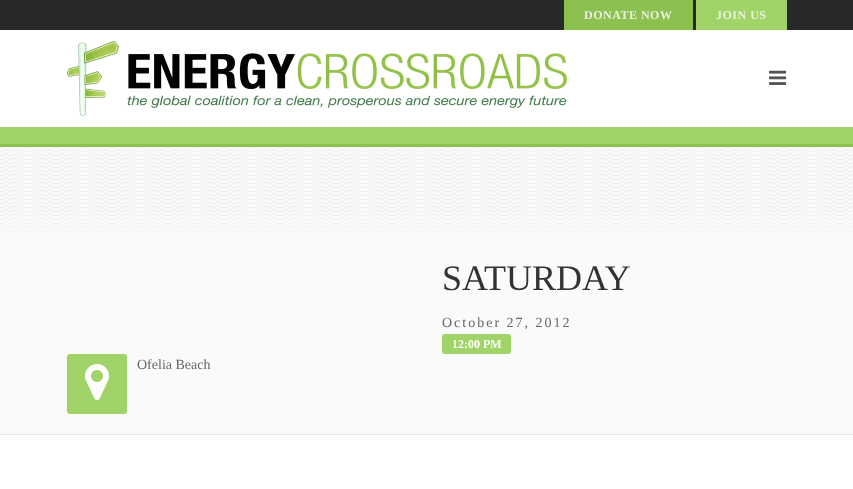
async function draw(canvas) {
  canvas.width = 853
  canvas.height = 489
  const ctx = canvas.getContext('2d')
  ctx.miterLimit = 4
  ctx.fontKerning = 'normal'
  async function loadImage(src) {
    const img = new Image()
    img.src = src
    await img.decode()
    return img
  }

  ctx.fillStyle = '#fff'
  ctx.fillRect(0, 0, 853, 489)
  ctx.fillStyle = '#292929'
  ctx.fillRect(0, 0, 853, 30)
  ctx.fillStyle = '#8cc152'
  ctx.fillRect(564, 0, 129, 30)
  ctx.letterSpacing = '0.5px'
  ctx.font = 'bold 12px Liberation Serif'
  ctx.fillStyle = '#e8f3dc'
  ctx.fillText('DONATE NOW', 584, 19)
  ctx.fillStyle = '#a0d468'
  ctx.fillRect(696, 0, 91, 30)
  ctx.fillStyle = '#e8f3dc'
  ctx.fillText('JOIN US', 716, 19)
  ctx.drawImage(await loadImage('image0.png'), 67, 41, 500, 75)
  ctx.drawImage(await loadImage('image1.png'), 769, 70, 18, 15)
  ctx.fillStyle = '#a0d468'
  ctx.fillRect(0, 127, 853, 17)
  ctx.fillStyle = '#8cc152'
  ctx.fillRect(0, 144, 853, 3)
  ctx.fillStyle = '#fafafa'
  ctx.fillRect(0, 147, 853, 287)
  ctx.drawImage(await loadImage('image2.png'), 0, 147, 853, 85)
  ctx.fillStyle = '#e8e8e8'
  ctx.fillRect(0, 434, 853, 1)
  ctx.letterSpacing = '0px'
  ctx.font = '36px Liberation Serif'
  ctx.fillStyle = '#333'
  ctx.fillText('SATURDAY', 442, 290)
  ctx.letterSpacing = '2px'
  ctx.font = '14px Liberation Serif'
  ctx.fillStyle = '#666'
  ctx.fillText('October 27, 2012', 442, 327)
  ctx.fillStyle = '#a0d468'
  ctx.beginPath()
  ctx.roundRect(442, 334, 69, 20, 3)
  ctx.fill()
  ctx.letterSpacing = '0px'
  ctx.font = 'bold 12px Liberation Serif'
  ctx.fillStyle = '#fff'
  ctx.fillText('12:00 PM', 452, 348)
  ctx.fillStyle = '#a0d468'
  ctx.beginPath()
  ctx.roundRect(67, 354, 60, 60, 3)
  ctx.fill()
  ctx.drawImage(await loadImage('image3.png'), 85, 364, 24, 36)
  ctx.font = '14px Liberation Serif'
  ctx.fillStyle = '#666'
  ctx.fillText('Ofelia Beach', 137, 369)
}

draw(document.querySelector('canvas'))
